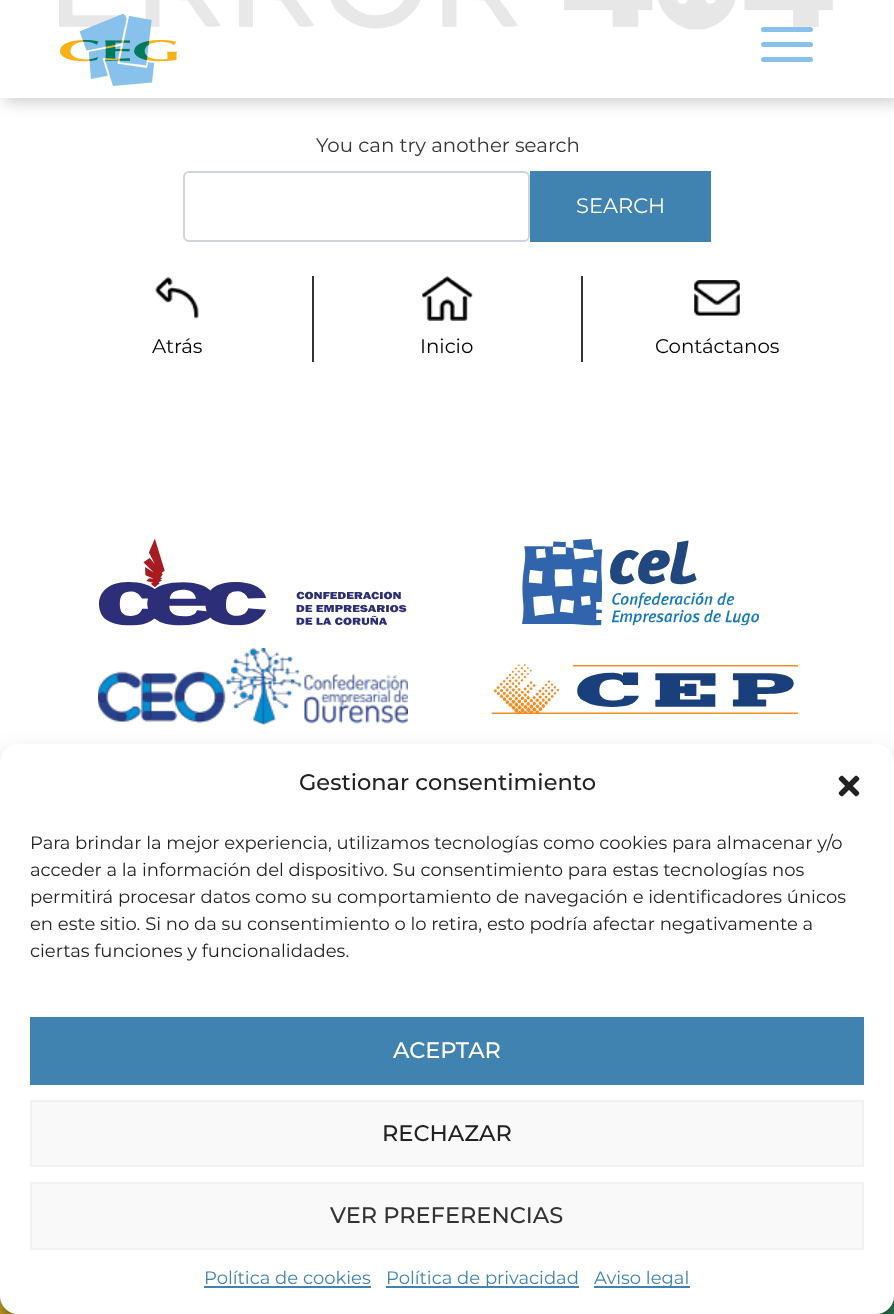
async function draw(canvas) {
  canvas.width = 894
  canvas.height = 1314
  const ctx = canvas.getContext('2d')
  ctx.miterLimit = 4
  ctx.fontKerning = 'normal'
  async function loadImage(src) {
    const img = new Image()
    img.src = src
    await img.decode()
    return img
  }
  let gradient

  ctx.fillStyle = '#fff'
  ctx.fillRect(0, 0, 894, 1314)
  ctx.drawImage(await loadImage('image1.png'), 59, 0, 774, 30)
  ctx.save()
  ctx.beginPath()
  ctx.moveTo(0, 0)
  ctx.lineTo(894, 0)
  ctx.lineTo(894, 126)
  ctx.lineTo(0, 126)
  ctx.closePath()
  ctx.moveTo(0, 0)
  ctx.lineTo(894, 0)
  ctx.lineTo(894, 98)
  ctx.lineTo(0, 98)
  ctx.closePath()
  ctx.clip('evenodd')
  ctx.fillStyle = '#00000033'
  ctx.filter = 'blur(7.5px)'
  ctx.beginPath()
  ctx.rect(5, 5, 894, 97)
  ctx.fill()
  ctx.filter = 'none'
  ctx.restore()
  ctx.fillStyle = '#ffffffe6'
  ctx.fillRect(0, 0, 894, 98)
  ctx.drawImage(await loadImage('image0.png'), 60, 14, 117, 72)
  ctx.fillStyle = '#88c2ec'
  ctx.beginPath()
  ctx.roundRect(761, 27, 52, 5, 2.5)
  ctx.fill()
  ctx.beginPath()
  ctx.roundRect(761, 42, 52, 5, 2.5)
  ctx.fill()
  ctx.beginPath()
  ctx.roundRect(761, 57, 52, 5, 2.5)
  ctx.fill()
  ctx.font = '19.75px Montserrat'
  ctx.fillStyle = '#333'
  ctx.fillText('You can try another search', 316, 152)
  ctx.beginPath()
  ctx.roundRect(184, 172, 345, 69, 5)
  ctx.strokeStyle = '#ced4da'
  ctx.lineWidth = 2
  ctx.stroke()
  ctx.fillStyle = '#4183b0'
  ctx.fillRect(530, 171, 181, 71)
  ctx.font = '21px Montserrat'
  ctx.fillStyle = '#fff'
  ctx.fillText('SEARCH', 576, 213)
  ctx.drawImage(await loadImage('image2.png'), 155, 277, 44, 42)
  ctx.font = '19.75px Montserrat'
  ctx.fillStyle = '#000'
  ctx.fillText('Atrás', 152, 353)
  ctx.fillStyle = '#333'
  ctx.fillRect(581, 276, 2, 86)
  ctx.fillRect(312, 276, 2, 86)
  ctx.drawImage(await loadImage('image3.png'), 422, 276, 51, 45)
  ctx.fillStyle = '#000'
  ctx.fillText('Inicio', 420, 353)
  ctx.drawImage(await loadImage('image4.png'), 694, 280, 46, 36)
  ctx.fillText('Contáctanos', 655, 353)
  ctx.drawImage(await loadImage('image5.png'), 99, 539, 308, 87)
  ctx.drawImage(await loadImage('image6.png'), 522, 539, 237, 87)
  ctx.drawImage(await loadImage('image7.png'), 98, 648, 310, 77)
  ctx.drawImage(await loadImage('image8.png'), 491, 664, 307, 50)
  gradient = ctx.createLinearGradient(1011, 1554, -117, 1075)
  gradient.addColorStop(0, '#007a5d')
  gradient.addColorStop(1, '#f9b117')
  ctx.fillStyle = gradient
  ctx.fillRect(0, 1296, 894, 18)
  ctx.fillStyle = '#0000003b'
  ctx.filter = 'blur(4.5px)'
  ctx.beginPath()
  ctx.roundRect(0, 753, 894, 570, 18)
  ctx.fill()
  ctx.filter = 'none'
  ctx.fillStyle = '#00000030'
  ctx.filter = 'blur(15px)'
  ctx.beginPath()
  ctx.roundRect(0, 759, 894, 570, 18)
  ctx.fill()
  ctx.filter = 'none'
  ctx.fillStyle = '#808080'
  ctx.filter = 'blur(4px)'
  ctx.beginPath()
  ctx.roundRect(789, 1203, 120, 90, 3)
  ctx.fill()
  ctx.filter = 'none'
  ctx.fillStyle = '#fff'
  ctx.beginPath()
  ctx.roundRect(0, 744, 894, 570, 18)
  ctx.fill()
  ctx.font = '500 22.5px Montserrat'
  ctx.fillStyle = '#222'
  ctx.fillText('Gestionar consentimiento', 299, 790)
  ctx.drawImage(await loadImage('image9.png'), 838, 775, 22, 22)
  ctx.font = '18px Montserrat'
  ctx.fillText('Para brindar la mejor experiencia, utilizamos tecnologías como cookies para almacenar y/o', 30, 849)
  ctx.fillText('acceder a la información del dispositivo. Su consentimiento para estas tecnologías nos', 30, 876)
  ctx.fillText('permitirá procesar datos como su comportamiento de navegación e identificadores únicos', 30, 903)
  ctx.fillText('en este sitio. Si no da su consentimiento o lo retira, esto podría afectar negativamente a', 30, 930)
  ctx.fillText('ciertas funciones y funcionalidades.', 30, 957)
  ctx.fillStyle = '#4183b0'
  ctx.fillRect(30, 1017, 834, 68)
  ctx.font = '500 22.5px Montserrat'
  ctx.fillStyle = '#fff'
  ctx.fillText('ACEPTAR', 393, 1058)
  ctx.fillStyle = '#f9f9f9'
  ctx.beginPath()
  ctx.rect(31, 1101, 832, 65)
  ctx.fill()
  ctx.strokeStyle = '#f2f2f2'
  ctx.stroke()
  ctx.fillStyle = '#222'
  ctx.fillText('RECHAZAR', 382, 1141)
  ctx.fillStyle = '#f9f9f9'
  ctx.beginPath()
  ctx.rect(31, 1183, 832, 66)
  ctx.fill()
  ctx.stroke()
  ctx.fillStyle = '#333'
  ctx.fillText('VER PREFERENCIAS', 330, 1223)
  ctx.font = '18px Montserrat'
  ctx.fillStyle = '#4183b0'
  ctx.fillText('Política de cookies', 204, 1284)
  ctx.fillRect(204, 1286, 167, 2)
  ctx.fillRect(386, 1286, 193, 2)
  ctx.fillText('Política de privacidad', 386, 1284)
  ctx.fillRect(594, 1286, 96, 2)
  ctx.fillText('Aviso legal', 594, 1284)
}

draw(document.querySelector('canvas'))
